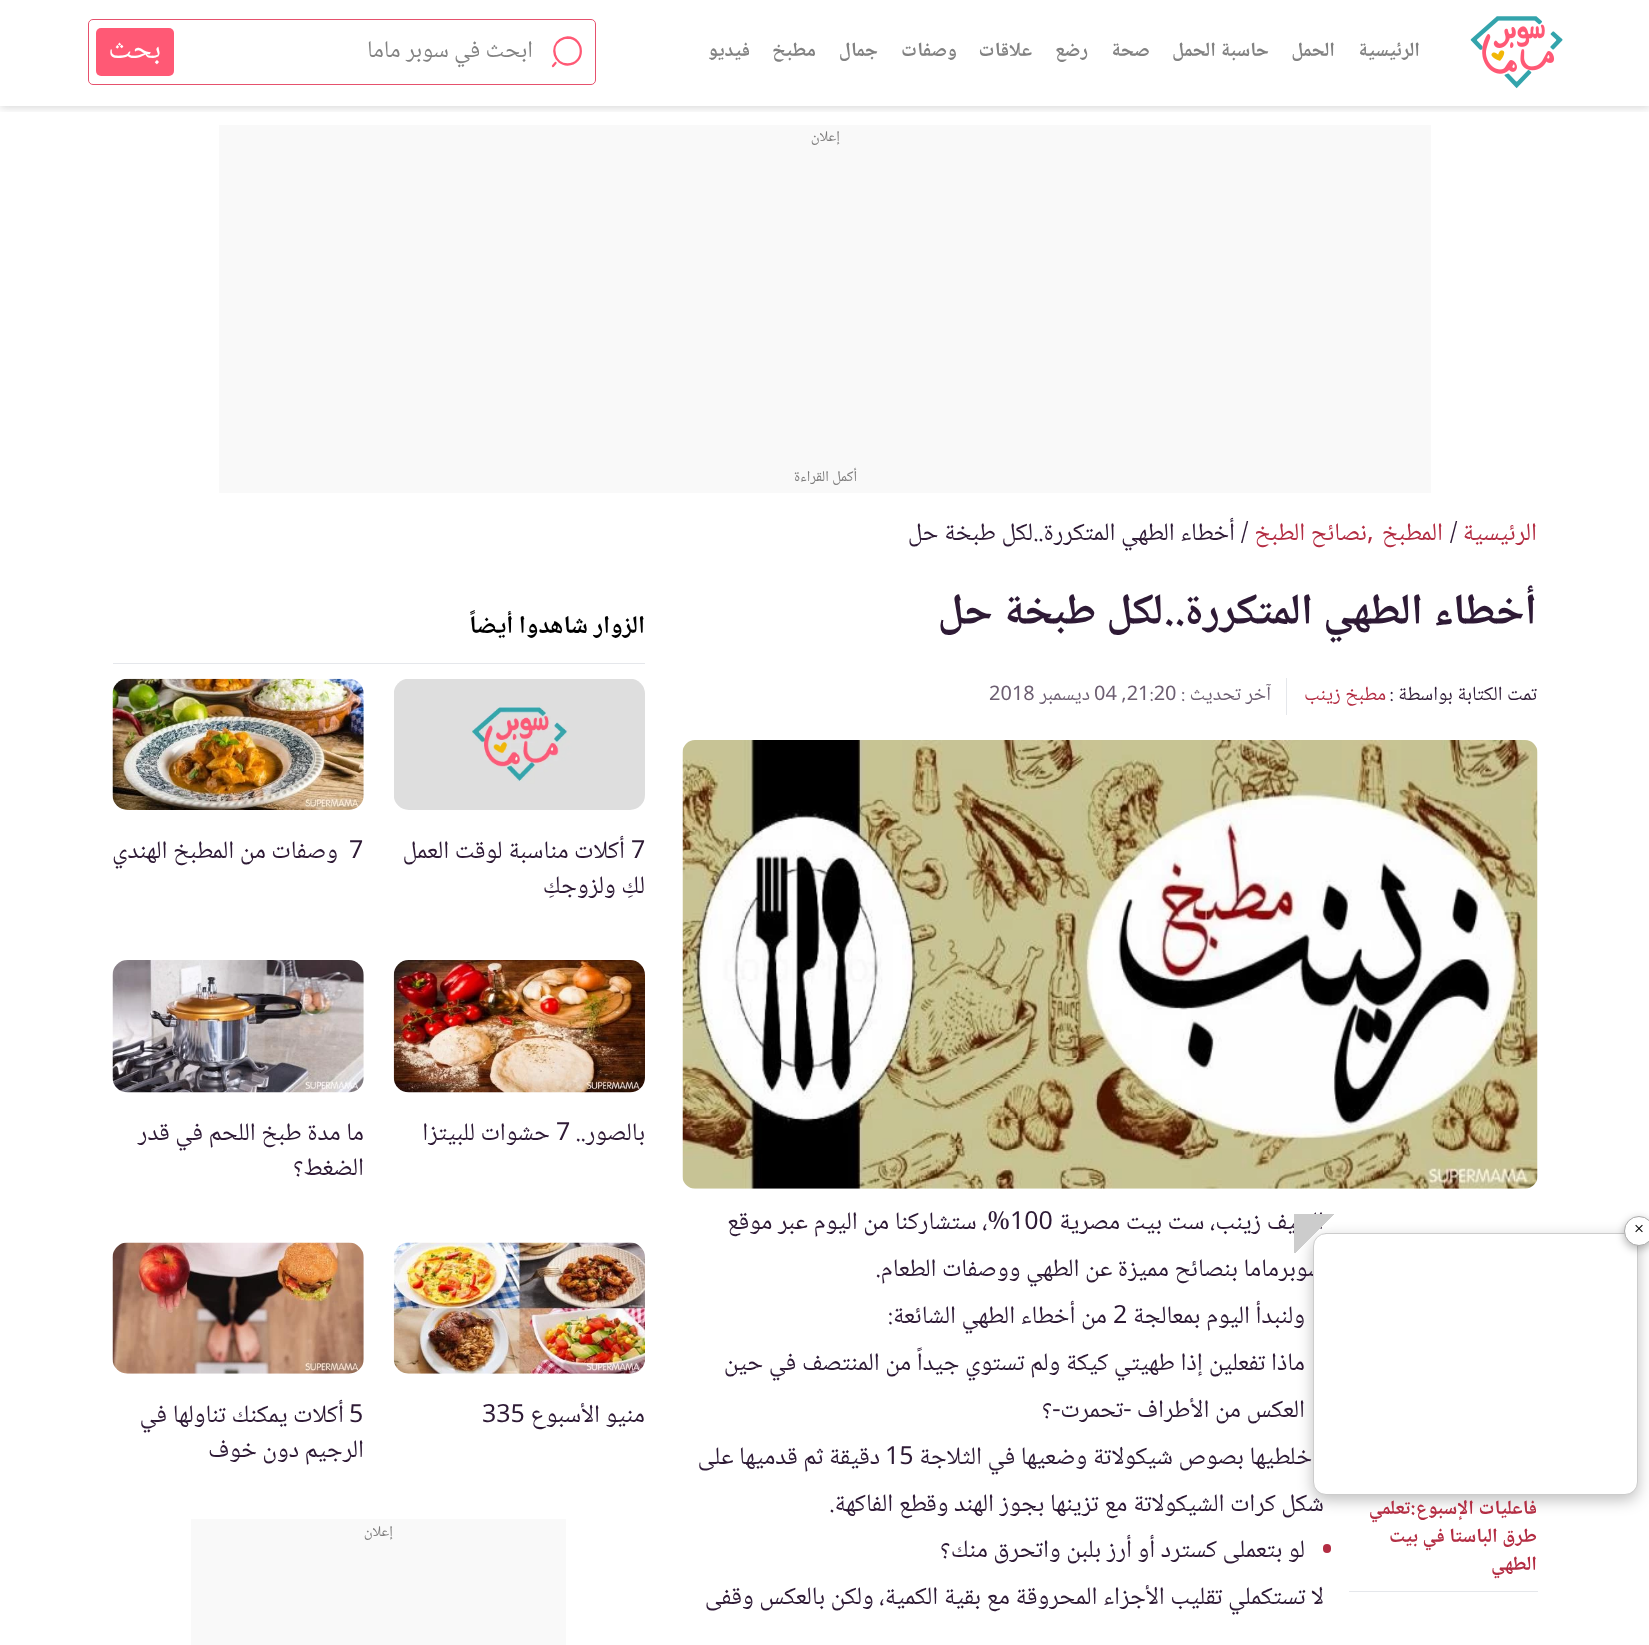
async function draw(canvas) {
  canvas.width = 1649
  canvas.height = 1645
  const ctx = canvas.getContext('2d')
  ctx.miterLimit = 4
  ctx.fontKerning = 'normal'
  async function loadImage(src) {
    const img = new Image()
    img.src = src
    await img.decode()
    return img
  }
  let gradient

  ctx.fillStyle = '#fff'
  ctx.fillRect(0, 0, 1649, 1645)
  ctx.save()
  ctx.beginPath()
  ctx.rect(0, 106, 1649, 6)
  ctx.clip()
  ctx.fillStyle = '#00000026'
  ctx.filter = 'blur(4px)'
  ctx.beginPath()
  ctx.rect(0, 1, 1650, 107)
  ctx.fill()
  ctx.filter = 'none'
  ctx.restore()
  ctx.drawImage(await loadImage('image0.png'), 1470, 16, 93, 73)
  ctx.direction = 'rtl'
  ctx.font = 'bold 20px Noto Naskh Arabic'
  ctx.fillStyle = '#828282'
  ctx.fillText('الرئيسية', 1420, 56)
  ctx.fillText('الحمل', 1335, 56)
  ctx.fillText('حاسبة الحمل', 1269, 56)
  ctx.fillText('صحة', 1150, 56)
  ctx.fillText('رضع', 1088, 56)
  ctx.fillText('علاقات', 1032, 56)
  ctx.fillText('وصفات', 957, 56)
  ctx.fillText('جمال', 878, 56)
  ctx.fillText('مطبخ', 816, 56)
  ctx.fillText('فيديو', 750, 56)
  ctx.beginPath()
  ctx.roundRect(88.5, 19.5, 507, 65, 4.5)
  ctx.strokeStyle = '#e6516d'
  ctx.stroke()
  ctx.beginPath()
  ctx.moveTo(553, 66)
  ctx.lineTo(555.5, 63)
  ctx.moveTo(567.5, 64.5)
  ctx.bezierCurveTo(554.5, 64.5, 549.5, 47, 560, 40)
  ctx.bezierCurveTo(562.5, 38.5, 565, 37.5, 567.5, 37.5)
  ctx.bezierCurveTo(585.5, 38, 585, 64.5, 567.5, 64.5)
  ctx.closePath()
  ctx.strokeStyle = '#ff5975'
  ctx.lineWidth = 2.3
  ctx.lineCap = 'round'
  ctx.lineJoin = 'round'
  ctx.stroke()
  ctx.font = '23.75px Noto Naskh Arabic'
  ctx.fillText('ابحث في سوبر ماما', 533, 57)
  ctx.fillStyle = '#ff5975'
  ctx.beginPath()
  ctx.roundRect(96, 28, 78, 48, 5)
  ctx.fill()
  ctx.font = '30px Noto Naskh Arabic'
  ctx.fillStyle = '#fff'
  ctx.fillText('بحث', 161, 58)
  ctx.fillStyle = '#00000040'
  ctx.filter = 'blur(7.5px)'
  ctx.beginPath()
  ctx.roundRect(1313, 1238, 325, 262, 13)
  ctx.fill()
  ctx.filter = 'none'
  ctx.font = '25px Noto Naskh Arabic'
  ctx.fillStyle = '#2e1a35'
  ctx.fillText('الشيف زينب، ست بيت مصرية', 1324, 1229)
  ctx.fillText('سوبرماما بنصائح مميزة عن الطهي ووصفات الطعام.', 1324, 1276)
  ctx.fillText('اخلطيها بصوص شيكولاتة وضعيها في الثلاجة', 1318, 1464)
  ctx.fillText('شكل كرات الشيكولاتة مع تزينها بجوز الهند وقطع الفاكهة.', 1324, 1511)
  ctx.fillStyle = '#fff'
  ctx.beginPath()
  ctx.roundRect(1313.5, 1233.5, 324, 261, 12.5)
  ctx.fill()
  ctx.strokeStyle = '#ccc'
  ctx.lineWidth = 1
  ctx.lineJoin = 'miter'
  ctx.stroke()
  ctx.fillStyle = '#0000004d'
  ctx.filter = 'blur(4px)'
  ctx.beginPath()
  ctx.roundRect(1624, 1219, 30, 30, 15)
  ctx.fill()
  ctx.filter = 'none'
  ctx.fillStyle = '#fff'
  ctx.beginPath()
  ctx.arc(1639, 1231, 14.5, 0, 2 * Math.PI)
  ctx.fill()
  ctx.strokeStyle = '#aaa'
  ctx.stroke()
  ctx.direction = 'ltr'
  ctx.font = '18px Noto Naskh Arabic'
  ctx.fillStyle = '#000'
  ctx.fillText('×', 1634, 1235)
  gradient = ctx.createLinearGradient(1294, 1214, 1334, 1254)
  gradient.addColorStop(0.5, '#ccc')
  gradient.addColorStop(0.5, '#cccccc00')
  ctx.fillStyle = gradient
  ctx.fillRect(1294, 1214, 40, 39)
  ctx.fillStyle = '#f9f9f9'
  ctx.fillRect(219, 125, 1212, 368)
  ctx.direction = 'rtl'
  ctx.font = '15px Noto Naskh Arabic'
  ctx.fillStyle = '#7c7b7b'
  ctx.fillText('إعلان', 840, 141)
  ctx.fillText('أكمل القراءة', 857, 481)
  ctx.font = '25px Noto Naskh Arabic'
  ctx.fillStyle = '#b32d43'
  ctx.fillText('الرئيسية', 1537, 540)
  ctx.direction = 'ltr'
  ctx.fillStyle = '#2e1a35'
  ctx.fillText('/', 1450, 540)
  ctx.direction = 'rtl'
  ctx.fillStyle = '#b32d43'
  ctx.fillText('المطبخ', 1443, 540)
  ctx.direction = 'ltr'
  ctx.fillText(',', 1367, 540)
  ctx.direction = 'rtl'
  ctx.fillText('نصائح الطبخ', 1367, 540)
  ctx.direction = 'ltr'
  ctx.fillStyle = '#2e1a35'
  ctx.fillText('/', 1241, 540)
  ctx.direction = 'rtl'
  ctx.fillText('أخطاء الطهي المتكررة..لكل طبخة حل', 1235, 540)
  ctx.font = 'bold 43.75px Noto Naskh Arabic'
  ctx.fillText('أخطاء الطهي المتكررة..لكل طبخة حل', 1537, 624)
  ctx.fillStyle = '#e5e7eb'
  ctx.fillRect(1286, 678, 1, 37)
  ctx.font = '20px Noto Naskh Arabic'
  ctx.fillStyle = '#2e1a35'
  ctx.fillText('تمت الكتابة بواسطة :', 1537, 700)
  ctx.fillStyle = '#b32d43'
  ctx.fillText('مطبخ زينب', 1386, 700)
  ctx.fillStyle = '#6d5f72'
  ctx.fillText('آخر تحديث :', 1271, 700)
  ctx.direction = 'ltr'
  ctx.fillText('04 ,21:20', 1094, 700)
  ctx.direction = 'rtl'
  ctx.fillText('ديسمبر', 1090, 700)
  ctx.direction = 'ltr'
  ctx.fillText('2018', 989, 700)
  ctx.drawImage(await loadImage('image1.png'), 682, 740, 856, 449)
  ctx.fillStyle = '#e5e7eb'
  ctx.fillRect(1349, 1591, 189, 1)
  ctx.direction = 'rtl'
  ctx.font = 'bold 20px Noto Naskh Arabic'
  ctx.fillStyle = '#b32d43'
  ctx.fillText('فاعليات الإسبوع:تعلمي', 1537, 1514)
  ctx.fillText('طرق الباستا في بيت', 1537, 1542)
  ctx.fillText('الطهي', 1537, 1570)
  ctx.direction = 'ltr'
  ctx.font = '25px Noto Naskh Arabic'
  ctx.fillStyle = '#2e1a35'
  ctx.fillText('100', 1010, 1229)
  ctx.direction = 'rtl'
  ctx.fillText('%، ستشاركنا من اليوم عبر موقع', 1010, 1229)
  ctx.fillText('ولنبدأ اليوم بمعالجة', 1305, 1323)
  ctx.direction = 'ltr'
  ctx.fillText('2', 1113, 1323)
  ctx.direction = 'rtl'
  ctx.fillText('من أخطاء الطهي الشائعة:', 1107, 1323)
  ctx.fillText('ماذا تفعلين إذا طهيتي كيكة ولم تستوي جيداً من المنتصف في حين', 1305, 1370)
  ctx.fillText('العكس من اﻷطراف -تحمرت-؟', 1305, 1417)
  ctx.direction = 'ltr'
  ctx.fillText('15', 885, 1464)
  ctx.direction = 'rtl'
  ctx.fillText('دقيقة ثم قدميها على', 880, 1464)
  ctx.fillStyle = '#b32d43'
  ctx.beginPath()
  ctx.roundRect(1323, 1544, 8, 9, 4)
  ctx.fill()
  ctx.fillStyle = '#2e1a35'
  ctx.fillText('لو بتعملى كسترد أو أرز بلبن واتحرق منك؟', 1305, 1557)
  ctx.fillText('لا تستكملي تقليب الأجزاء المحروقة مع بقية الكمية، ولكن بالعكس وقفى', 1324, 1604)
  ctx.fillStyle = '#e5e7eb'
  ctx.fillRect(113, 663, 532, 1)
  ctx.font = 'bold 25px Noto Naskh Arabic'
  ctx.fillStyle = '#000'
  ctx.fillText('الزوار شاهدوا أيضاً', 645, 633)
  ctx.drawImage(await loadImage('image2.png'), 394, 679, 251, 131)
  ctx.direction = 'ltr'
  ctx.font = '25px Noto Naskh Arabic'
  ctx.fillStyle = '#2e1a35'
  ctx.fillText('7', 631, 858)
  ctx.direction = 'rtl'
  ctx.fillText('أكلات مناسبة لوقت العمل', 625, 858)
  ctx.fillText('لكِ ولزوجكِ', 645, 893)
  ctx.drawImage(await loadImage('image3.png'), 112, 678, 252, 132)
  ctx.direction = 'ltr'
  ctx.fillText('7', 349, 858)
  ctx.direction = 'rtl'
  ctx.fillText('وصفات من المطبخ الهندي', 338, 858)
  ctx.drawImage(await loadImage('image4.png'), 393, 960, 252, 133)
  ctx.fillText('بالصور..', 645, 1140)
  ctx.direction = 'ltr'
  ctx.fillText('7', 556, 1140)
  ctx.direction = 'rtl'
  ctx.fillText('حشوات للبيتزا', 550, 1140)
  ctx.drawImage(await loadImage('image5.png'), 112, 960, 252, 133)
  ctx.fillText('ما مدة طبخ اللحم في قدر', 364, 1140)
  ctx.fillText('الضغط؟', 364, 1175)
  ctx.drawImage(await loadImage('image6.png'), 393, 1242, 252, 132)
  ctx.fillText('منيو الأسبوع', 645, 1422)
  ctx.direction = 'ltr'
  ctx.fillText('335', 482, 1422)
  ctx.drawImage(await loadImage('image7.png'), 112, 1242, 252, 132)
  ctx.fillText('5', 349, 1422)
  ctx.direction = 'rtl'
  ctx.fillText('أكلات يمكنك تناولها في', 344, 1422)
  ctx.fillText('الرجيم دون خوف', 364, 1457)
  ctx.fillStyle = '#f9f9f9'
  ctx.fillRect(191, 1519, 375, 126)
  ctx.font = '15px Noto Naskh Arabic'
  ctx.fillStyle = '#7c7b7b'
  ctx.fillText('إعلان', 393, 1536)
}

draw(document.querySelector('canvas'))
